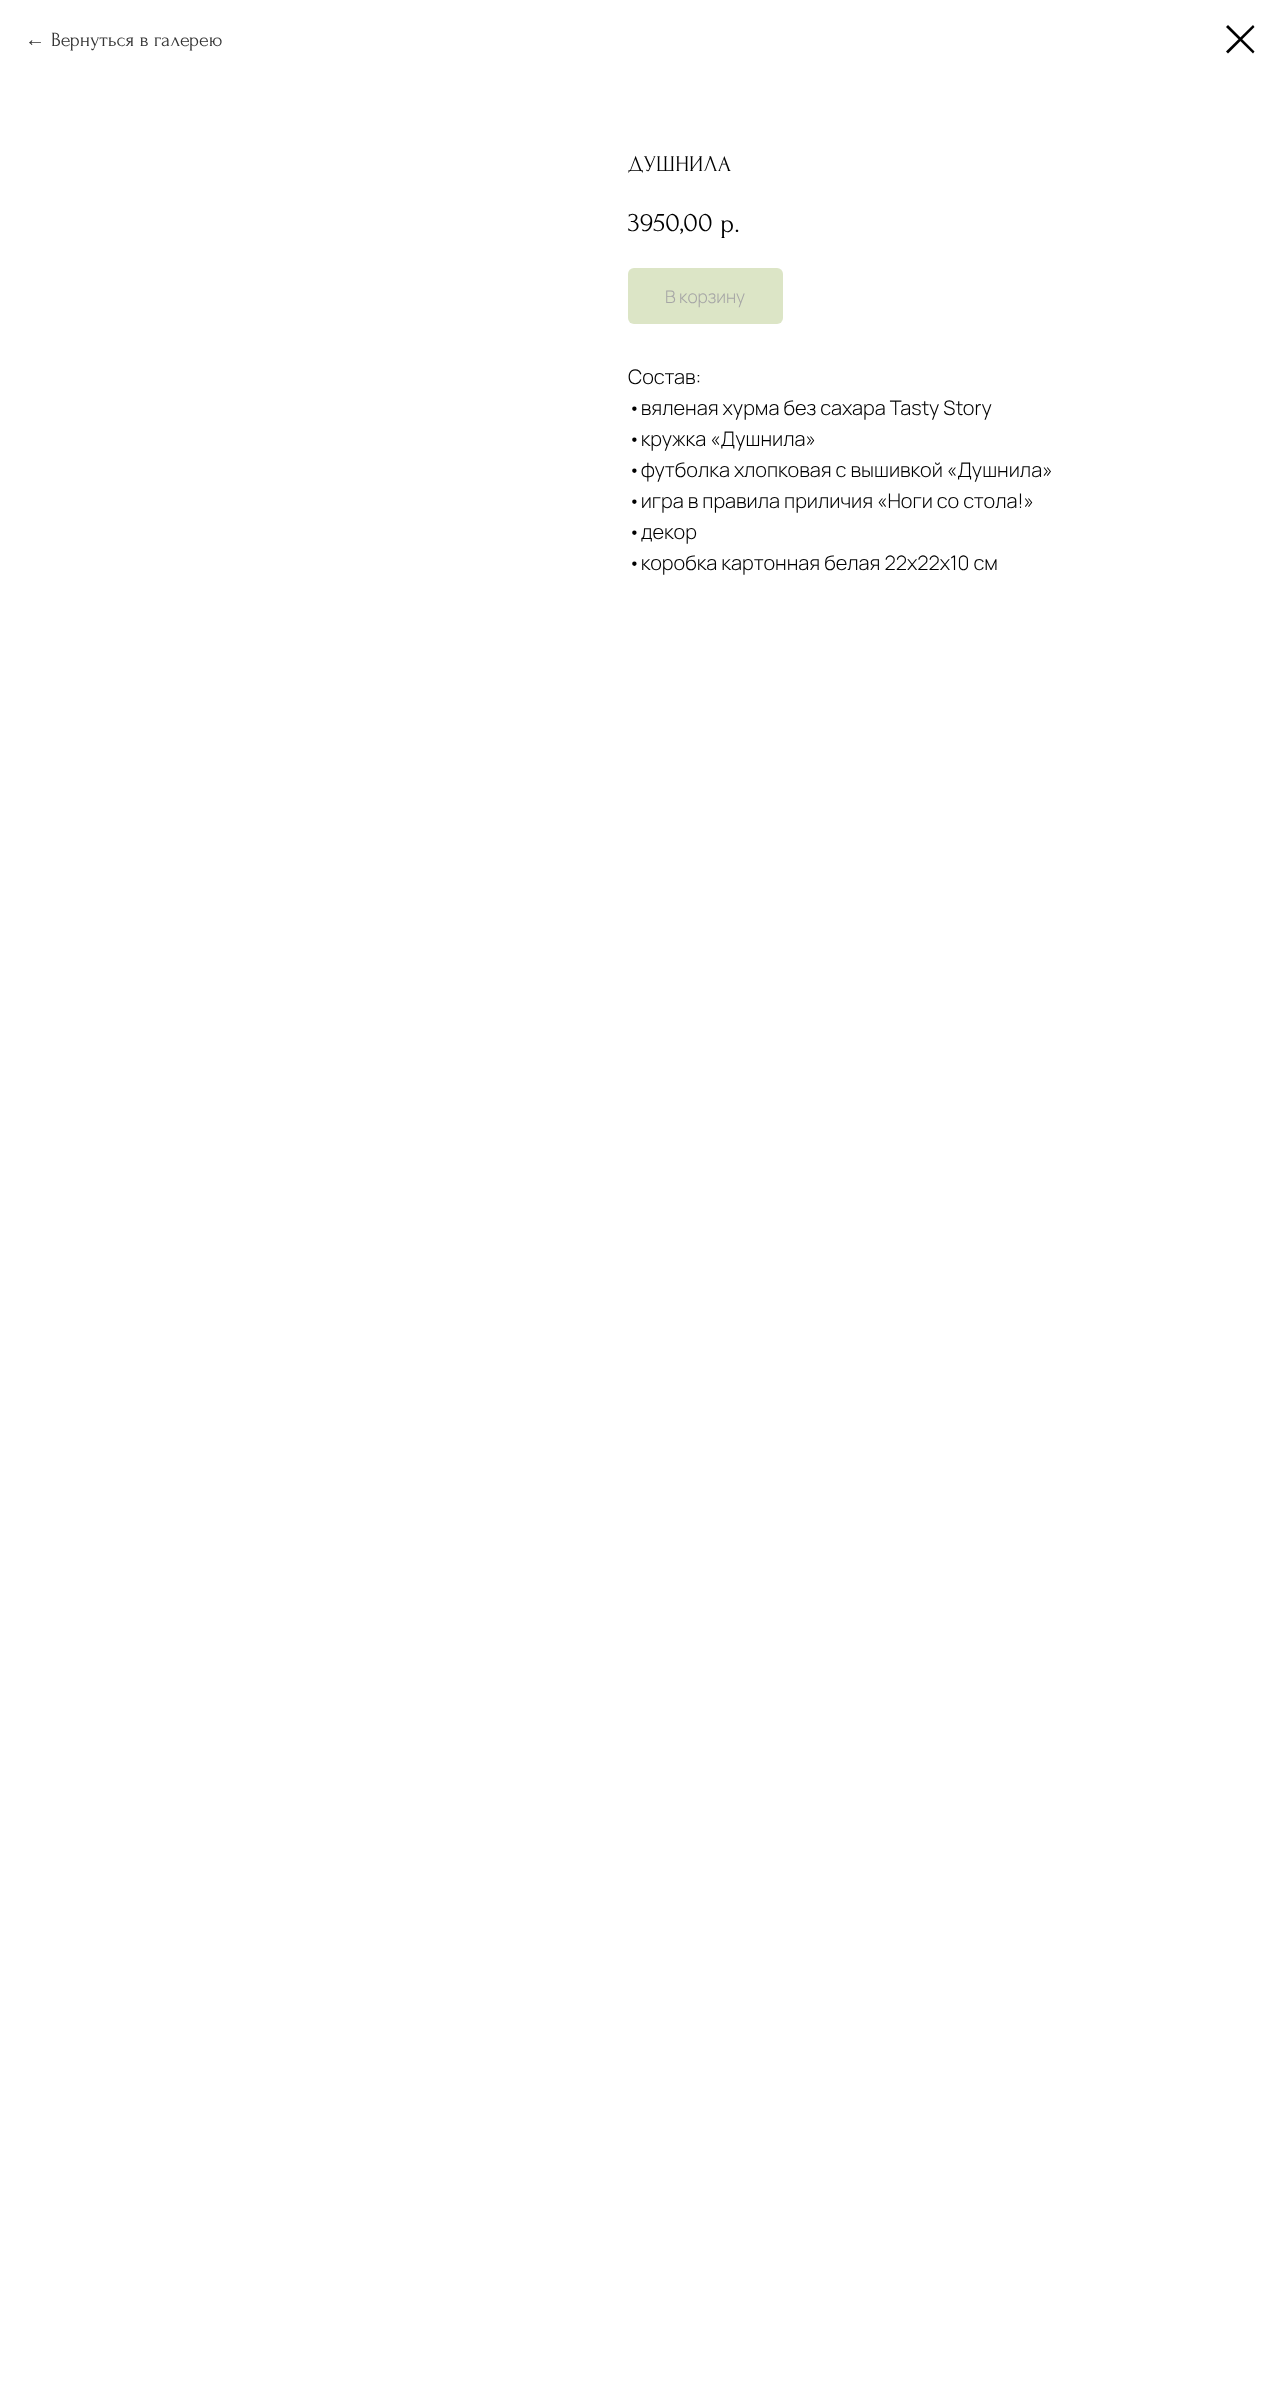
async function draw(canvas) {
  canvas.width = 1280
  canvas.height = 2402
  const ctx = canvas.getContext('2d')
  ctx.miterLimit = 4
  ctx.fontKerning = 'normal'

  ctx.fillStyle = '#fff'
  ctx.fillRect(0, 0, 1280, 2402)
  ctx.font = '20px Liberation Sans'
  ctx.fillStyle = '#333'
  ctx.fillText('←', 25, 46)
  ctx.font = '20px Forum'
  ctx.fillText('Вернуться в галерею', 51, 46)
  ctx.fillStyle = '#000'
  ctx.beginPath()
  ctx.moveTo(1226, 27)
  ctx.lineTo(1228, 25)
  ctx.lineTo(1254.5, 51.5)
  ctx.lineTo(1253, 53.5)
  ctx.closePath()
  ctx.fill('evenodd')
  ctx.beginPath()
  ctx.moveTo(1253, 25)
  ctx.lineTo(1254.5, 27)
  ctx.lineTo(1228, 53.5)
  ctx.lineTo(1226, 51.5)
  ctx.closePath()
  ctx.fill('evenodd')
  ctx.font = '22.5px Forum'
  ctx.fillText('ДУШНИЛА', 628, 171)
  ctx.font = '27.5px Forum'
  ctx.fillText('3950,00', 628, 231)
  ctx.fillText('р.', 720, 232)
  ctx.fillStyle = '#dce5c6'
  ctx.beginPath()
  ctx.roundRect(628, 268, 155, 56, 6)
  ctx.fill()
  ctx.font = '300 17.5px Manrope'
  ctx.fillStyle = '#a6a6a6'
  ctx.fillText('В корзину', 665, 303)
  ctx.font = '300 20px Manrope'
  ctx.fillStyle = '#000'
  ctx.fillText('Состав:', 628, 384)
  ctx.fillText('•вяленая хурма без сахара Tasty Story', 628, 415)
  ctx.fillText('•кружка «Душнила»', 628, 446)
  ctx.fillText('•футболка хлопковая с вышивкой «Душнила»', 628, 477)
  ctx.fillText('•игра в правила приличия «Ноги со стола!»', 628, 508)
  ctx.fillText('•декор', 628, 539)
  ctx.fillText('•коробка картонная белая 22х22х10 см', 628, 570)
}

draw(document.querySelector('canvas'))
